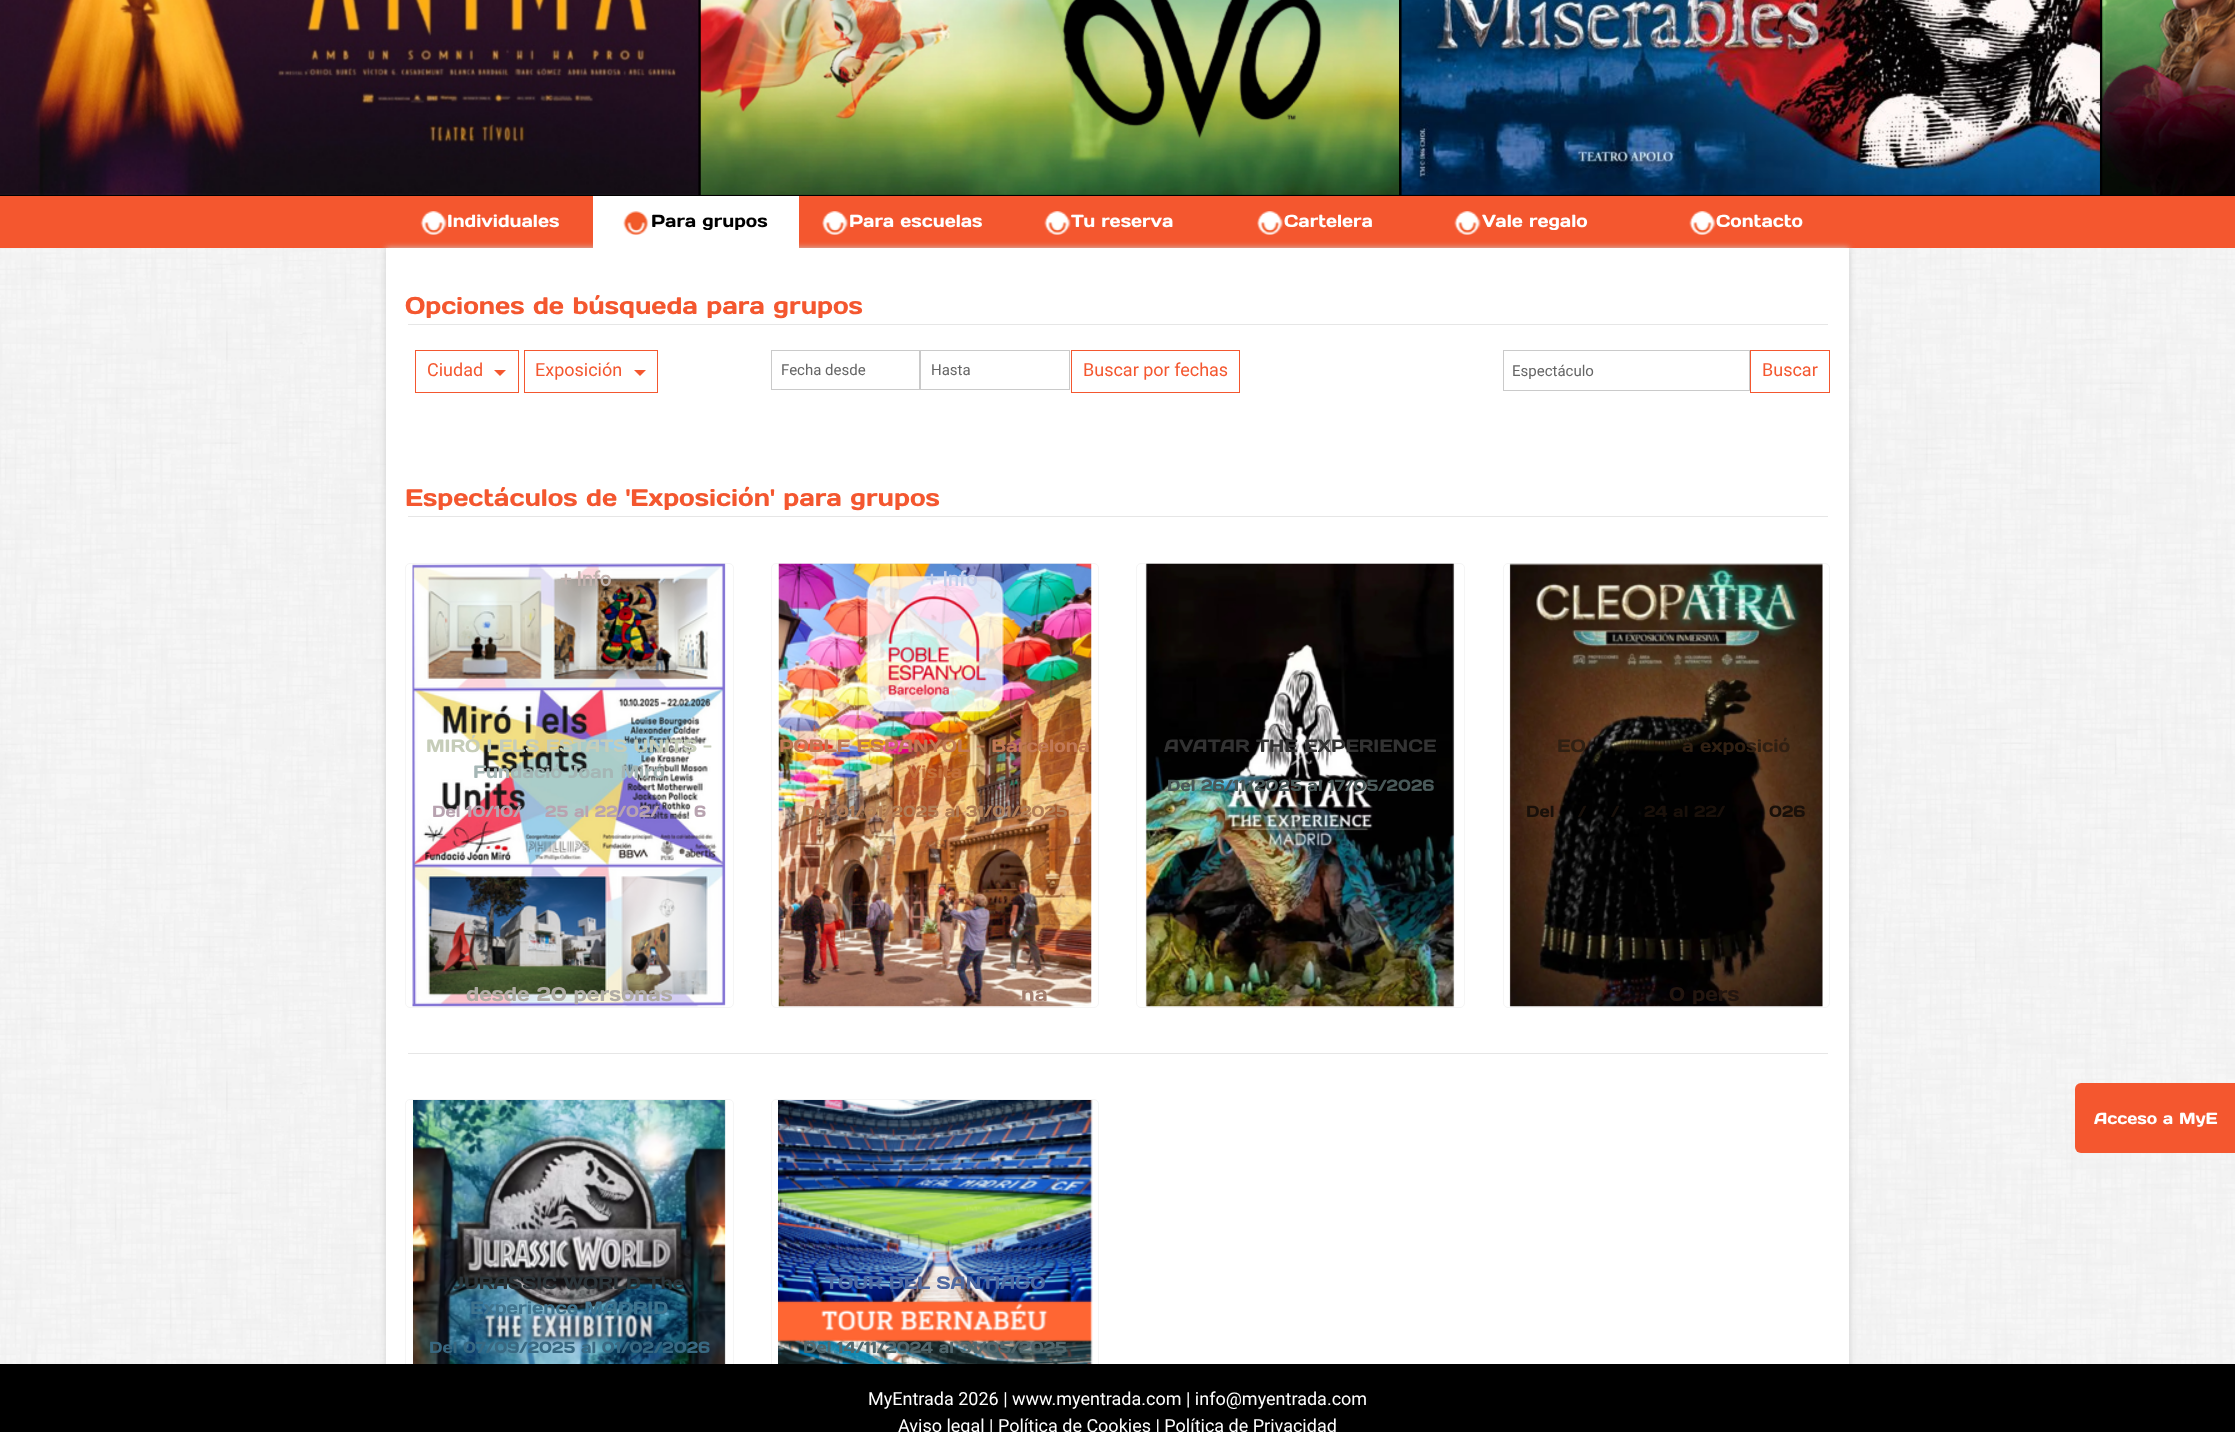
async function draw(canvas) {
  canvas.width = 2235
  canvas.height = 1432
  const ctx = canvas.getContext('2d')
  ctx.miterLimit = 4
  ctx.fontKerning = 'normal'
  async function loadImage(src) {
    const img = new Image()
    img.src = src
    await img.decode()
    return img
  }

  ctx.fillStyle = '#fff'
  ctx.fillRect(0, 0, 2235, 1432)
  ctx.drawImage(await loadImage('image0.png'), 0, 248, 2235, 1116)
  ctx.fillStyle = '#000'
  ctx.fillRect(0, 0, 2235, 196)
  ctx.drawImage(await loadImage('image1.png'), 0, 0, 699, 195)
  ctx.drawImage(await loadImage('image2.png'), 700, 0, 699, 195)
  ctx.drawImage(await loadImage('image3.png'), 1401, 0, 699, 195)
  ctx.drawImage(await loadImage('image4.png'), 2102, 0, 133, 195)
  ctx.fillStyle = '#f4572f'
  ctx.fillRect(0, 196, 2235, 52)
  ctx.drawImage(await loadImage('image5.png'), 420, 211, 27, 24)
  ctx.font = '17.5px Days One'
  ctx.fillStyle = '#fff'
  ctx.fillText('Individuales', 447, 227)
  ctx.fillStyle = '#ccc'
  ctx.filter = 'blur(3px)'
  ctx.beginPath()
  ctx.rect(386, 248, 1463, 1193)
  ctx.fill()
  ctx.filter = 'none'
  ctx.fillStyle = '#fff'
  ctx.fillRect(593, 196, 206, 52)
  ctx.drawImage(await loadImage('image6.png'), 623, 211, 26, 24)
  ctx.fillStyle = '#000'
  ctx.fillText('Para grupos', 651, 227)
  ctx.drawImage(await loadImage('image7.png'), 822, 211, 27, 24)
  ctx.fillStyle = '#fff'
  ctx.fillText('Para escuelas', 849, 227)
  ctx.drawImage(await loadImage('image8.png'), 1044, 211, 27, 24)
  ctx.fillText('Tu reserva', 1071, 227)
  ctx.drawImage(await loadImage('image7.png'), 1257, 211, 27, 24)
  ctx.fillText('Cartelera', 1284, 227)
  ctx.drawImage(await loadImage('image8.png'), 1454, 211, 27, 24)
  ctx.fillText('Vale regalo', 1482, 227)
  ctx.drawImage(await loadImage('image8.png'), 1689, 211, 27, 24)
  ctx.fillText('Contacto', 1716, 227)
  ctx.fillRect(386, 248, 1463, 1116)
  ctx.font = '24px Days One'
  ctx.fillStyle = '#f4572f'
  ctx.fillText('Opciones de búsqueda para grupos', 405, 314)
  ctx.fillStyle = '#e6e6e6'
  ctx.fillRect(408, 324, 1420, 1)
  ctx.strokeStyle = '#f4572f'
  ctx.strokeRect(415.5, 350.5, 103, 42)
  ctx.font = '18px Roboto'
  ctx.fillStyle = '#f4572f'
  ctx.fillText('Ciudad', 427, 376)
  ctx.beginPath()
  ctx.moveTo(494, 370)
  ctx.lineTo(506, 370)
  ctx.lineTo(500, 376)
  ctx.closePath()
  ctx.fill()
  ctx.strokeRect(524.5, 350.5, 133, 42)
  ctx.fillText('Exposición', 535, 376)
  ctx.beginPath()
  ctx.moveTo(634, 370)
  ctx.lineTo(646, 370)
  ctx.lineTo(640, 376)
  ctx.closePath()
  ctx.fill()
  ctx.strokeStyle = '#cacaca'
  ctx.strokeRect(771.5, 350.5, 148, 39)
  ctx.font = '15px Roboto'
  ctx.fillStyle = '#656565'
  ctx.fillText('Fecha desde', 781, 375)
  ctx.strokeRect(920.5, 350.5, 149, 39)
  ctx.fillText('Hasta', 931, 375)
  ctx.strokeStyle = '#f4572f'
  ctx.strokeRect(1071.5, 350.5, 168, 42)
  ctx.font = '18px Roboto'
  ctx.fillStyle = '#f4572f'
  ctx.fillText('Buscar por fechas', 1083, 376)
  ctx.strokeStyle = '#cacaca'
  ctx.strokeRect(1503.5, 350.5, 246, 40)
  ctx.font = '15px Roboto'
  ctx.fillStyle = '#656565'
  ctx.fillText('Espectáculo', 1512, 376)
  ctx.strokeStyle = '#f4572f'
  ctx.strokeRect(1750.5, 350.5, 79, 42)
  ctx.font = '18px Roboto'
  ctx.fillStyle = '#f4572f'
  ctx.fillText('Buscar', 1762, 376)
  ctx.font = '24px Days One'
  ctx.fillText('Espectáculos de \'Exposición\' para grupos', 405, 506)
  ctx.fillStyle = '#e6e6e6'
  ctx.fillRect(408, 516, 1420, 1)
  ctx.beginPath()
  ctx.roundRect(405.5, 563.5, 328, 444, 4.5)
  ctx.strokeStyle = '#f5f5f5'
  ctx.stroke()
  ctx.drawImage(await loadImage('image9.png'), 412, 563, 314, 444)
  ctx.font = 'bold 20px Roboto'
  ctx.fillStyle = '#c2b3af'
  ctx.fillText('+ Info', 560, 586)
  ctx.font = '18px Days One'
  ctx.fillStyle = '#c6cdb9'
  ctx.fillText('MIRÓ I ELS ESTATS UNITS -', 426, 752)
  ctx.fillStyle = '#a5b6b5'
  ctx.fillText('Fundació Joan Miró', 473, 778)
  ctx.font = '16.25px Days One'
  ctx.fillStyle = '#b8a3b0'
  ctx.fillText('Del 10/10/', 432, 817)
  ctx.fillText('25 al 22/02/', 545, 817)
  ctx.fillText('6', 694, 817)
  ctx.font = '20px Days One'
  ctx.fillStyle = '#b0aca5'
  ctx.fillText('desde 20 personas', 466, 1001)
  ctx.beginPath()
  ctx.roundRect(771.5, 563.5, 327, 444, 4.5)
  ctx.stroke()
  ctx.drawImage(await loadImage('image10.png'), 778, 563, 314, 444)
  ctx.font = 'bold 20px Roboto'
  ctx.fillStyle = '#c5d0ec'
  ctx.fillText('+ Info', 926, 586)
  ctx.font = '18px Days One'
  ctx.fillStyle = '#c27956'
  ctx.fillText('POBLE ESPANYOL - Barcelona', 779, 752)
  ctx.fillStyle = '#c26f3a'
  ctx.fillText('Visita', 907, 778)
  ctx.font = '16.25px Days One'
  ctx.fillStyle = '#b17d56'
  ctx.fillText('Del 01/01/2025 al 31/01/2025', 802, 817)
  ctx.font = '20px Days One'
  ctx.fillStyle = '#a37d6d'
  ctx.fillText('na', 1021, 1001)
  ctx.beginPath()
  ctx.roundRect(1136.5, 563.5, 328, 444, 4.5)
  ctx.stroke()
  ctx.drawImage(await loadImage('image11.png'), 1145, 563, 310, 444)
  ctx.font = '18px Days One'
  ctx.fillStyle = '#323232'
  ctx.fillText('AVATAR THE EXPERIENCE', 1164, 752)
  ctx.font = '16.25px Days One'
  ctx.fillStyle = '#485858'
  ctx.fillText('Del 26/11/2025 al 17/05/2026', 1167, 791)
  ctx.beginPath()
  ctx.roundRect(1503.5, 563.5, 326, 444, 4.5)
  ctx.stroke()
  ctx.drawImage(await loadImage('image12.png'), 1509, 563, 314, 444)
  ctx.font = '18px Days One'
  ctx.fillStyle = '#302013'
  ctx.fillText('EO', 1557, 752)
  ctx.fillText('a exposició', 1682, 752)
  ctx.font = '16.25px Days One'
  ctx.fillStyle = '#19100a'
  ctx.fillText('Del', 1526, 817)
  ctx.fillText('/', 1578, 817)
  ctx.fillText('/', 1611, 817)
  ctx.fillText('24 al 22/', 1644, 817)
  ctx.fillText('026', 1769, 817)
  ctx.font = '20px Days One'
  ctx.fillStyle = '#231610'
  ctx.fillText('0 pers', 1669, 1001)
  ctx.fillStyle = '#e6e6e6'
  ctx.fillRect(408, 1053, 1420, 1)
  ctx.beginPath()
  ctx.roundRect(405.5, 1099.5, 328, 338, 4.5)
  ctx.stroke()
  ctx.drawImage(await loadImage('image13.png'), 413, 1100, 313, 264)
  ctx.font = '18px Days One'
  ctx.fillStyle = '#2b3439'
  ctx.fillText('JURASSIC WORLD The', 454, 1289)
  ctx.fillStyle = '#40738d'
  ctx.fillText('Experience MADRID', 470, 1314)
  ctx.font = '16.25px Days One'
  ctx.fillStyle = '#396881'
  ctx.fillText('Del 07/09/2025 al 01/02/2026', 429, 1353)
  ctx.beginPath()
  ctx.roundRect(771.5, 1099.5, 327, 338, 4.5)
  ctx.stroke()
  ctx.drawImage(await loadImage('image14.png'), 778, 1100, 315, 264)
  ctx.font = '18px Days One'
  ctx.fillStyle = '#506aa1'
  ctx.fillText('TOUR DEL SANTIAGO', 825, 1289)
  ctx.font = '16.25px Days One'
  ctx.fillStyle = '#51676d'
  ctx.fillText('Del 14/11/2024 al 31/05/2025', 803, 1353)
  ctx.fillStyle = '#f4572f'
  ctx.beginPath()
  ctx.roundRect(2075, 1083, 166, 70, 6)
  ctx.fill()
  ctx.font = '16px Days One'
  ctx.fillStyle = '#fff'
  ctx.fillText('Acceso a MyE', 2094, 1124)
  ctx.fillStyle = '#000'
  ctx.fillRect(0, 1364, 2235, 68)
  ctx.font = '18px Roboto'
  ctx.fillStyle = '#fff'
  ctx.fillText('MyEntrada 2026 | www.myentrada.com | info@myentrada.com', 868, 1405)
  ctx.fillText('Aviso legal | Política de Cookies | Política de Privacidad', 898, 1432)
}

draw(document.querySelector('canvas'))
